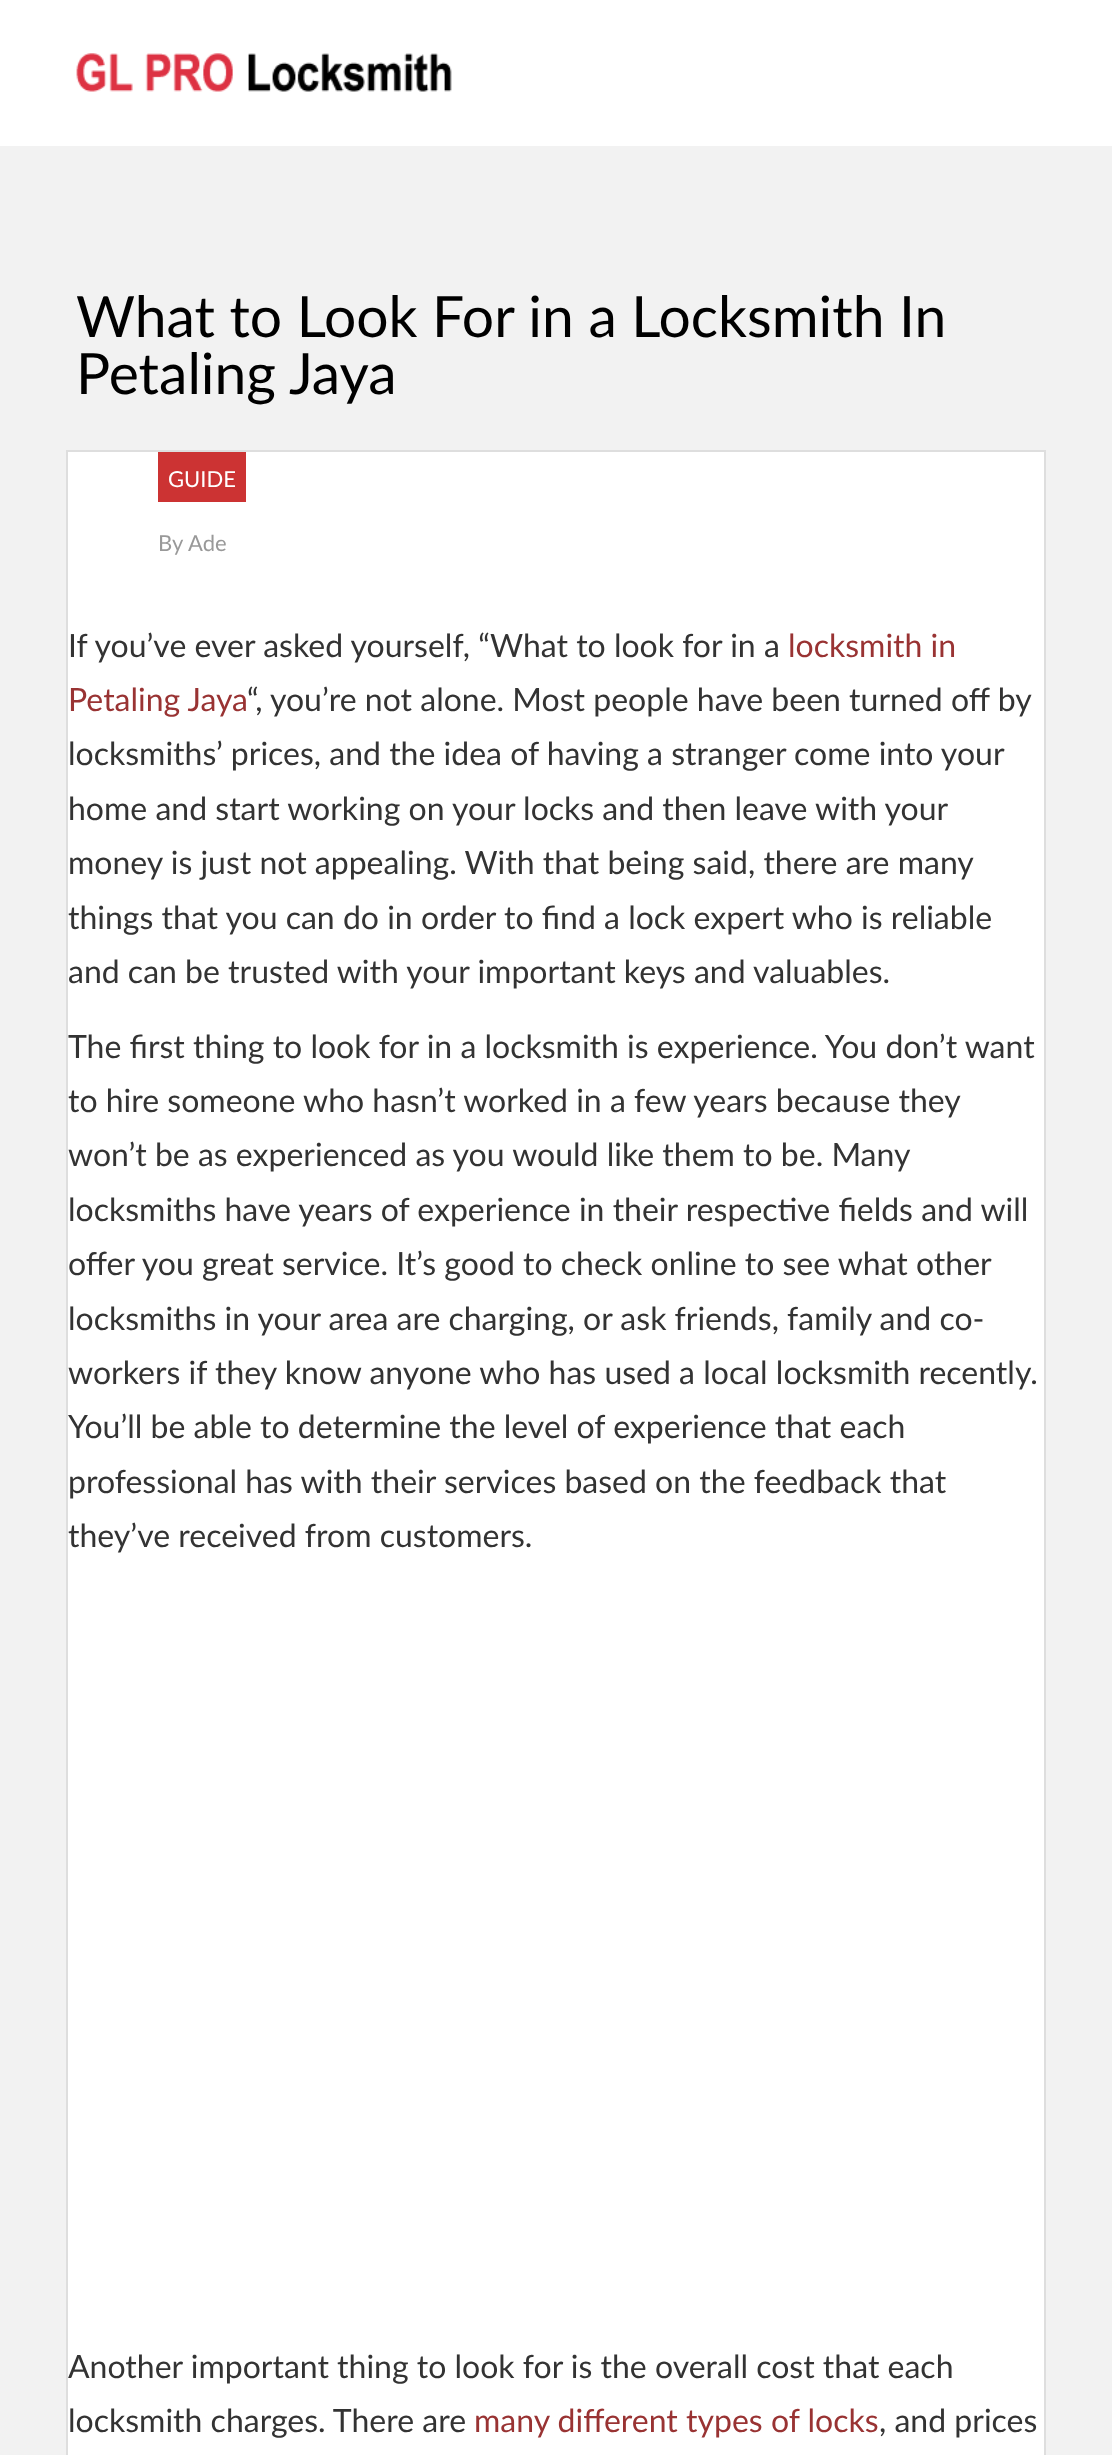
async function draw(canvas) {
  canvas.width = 1112
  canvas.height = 2455
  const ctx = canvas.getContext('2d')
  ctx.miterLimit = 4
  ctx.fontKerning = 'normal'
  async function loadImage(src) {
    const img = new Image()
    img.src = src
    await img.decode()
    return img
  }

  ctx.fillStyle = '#f2f2f2'
  ctx.fillRect(0, 0, 1112, 2455)
  ctx.fillStyle = '#fff'
  ctx.fillRect(0, 0, 1112, 146)
  ctx.drawImage(await loadImage('image0.png'), 76, 53, 376, 39)
  ctx.font = '57px Lato'
  ctx.fillStyle = '#000'
  ctx.fillText('What to Look For in a Locksmith In', 76, 337)
  ctx.fillText('Petaling Jaya', 76, 394)
  ctx.fillStyle = '#fff'
  ctx.beginPath()
  ctx.rect(67, 451, 978, 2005)
  ctx.fill()
  ctx.strokeStyle = '#dedede'
  ctx.lineWidth = 2
  ctx.stroke()
  ctx.fillStyle = '#c33'
  ctx.fillRect(158, 452, 88, 50)
  ctx.font = '22px Lato'
  ctx.fillStyle = '#fff'
  ctx.fillText('GUIDE', 168, 487)
  ctx.fillStyle = '#999'
  ctx.fillText('By', 158, 551)
  ctx.fillText('Ade', 188, 551)
  ctx.font = '32px Lato'
  ctx.fillStyle = '#333'
  ctx.fillText('If you’ve ever asked yourself, “What to look for in a', 68, 657)
  ctx.fillStyle = '#933'
  ctx.fillText('locksmith in', 788, 657)
  ctx.fillText('Petaling Jaya', 68, 711)
  ctx.fillStyle = '#333'
  ctx.fillText('“, you’re not alone. Most people have been turned off by', 247, 711)
  ctx.fillText('locksmiths’ prices, and the idea of having a stranger come into your', 68, 765)
  ctx.fillText('home and start working on your locks and then leave with your', 68, 820)
  ctx.fillText('money is just not appealing. With that being said, there are many', 68, 874)
  ctx.fillText('things that you can do in order to find a lock expert who is reliable', 68, 929)
  ctx.fillText('and can be trusted with your important keys and valuables.', 68, 983)
  ctx.fillText('The first thing to look for in a locksmith is experience. You don’t want', 68, 1058)
  ctx.fillText('to hire someone who hasn’t worked in a few years because they', 68, 1112)
  ctx.fillText('won’t be as experienced as you would like them to be. Many', 68, 1166)
  ctx.fillText('locksmiths have years of experience in their respective fields and will', 68, 1221)
  ctx.fillText('offer you great service. It’s good to check online to see what other', 68, 1275)
  ctx.fillText('locksmiths in your area are charging, or ask friends, family and co-', 68, 1330)
  ctx.fillText('workers if they know anyone who has used a local locksmith recently.', 68, 1384)
  ctx.fillText('You’ll be able to determine the level of experience that each', 68, 1438)
  ctx.fillText('professional has with their services based on the feedback that', 68, 1493)
  ctx.fillText('they’ve received from customers.', 68, 1547)
  ctx.fillText('Another important thing to look for is the overall cost that each', 68, 2378)
  ctx.fillText('locksmith charges. There are', 68, 2432)
  ctx.fillStyle = '#933'
  ctx.fillText('many different types of locks', 474, 2432)
  ctx.fillStyle = '#333'
  ctx.fillText(', and prices', 879, 2432)
}

draw(document.querySelector('canvas'))
